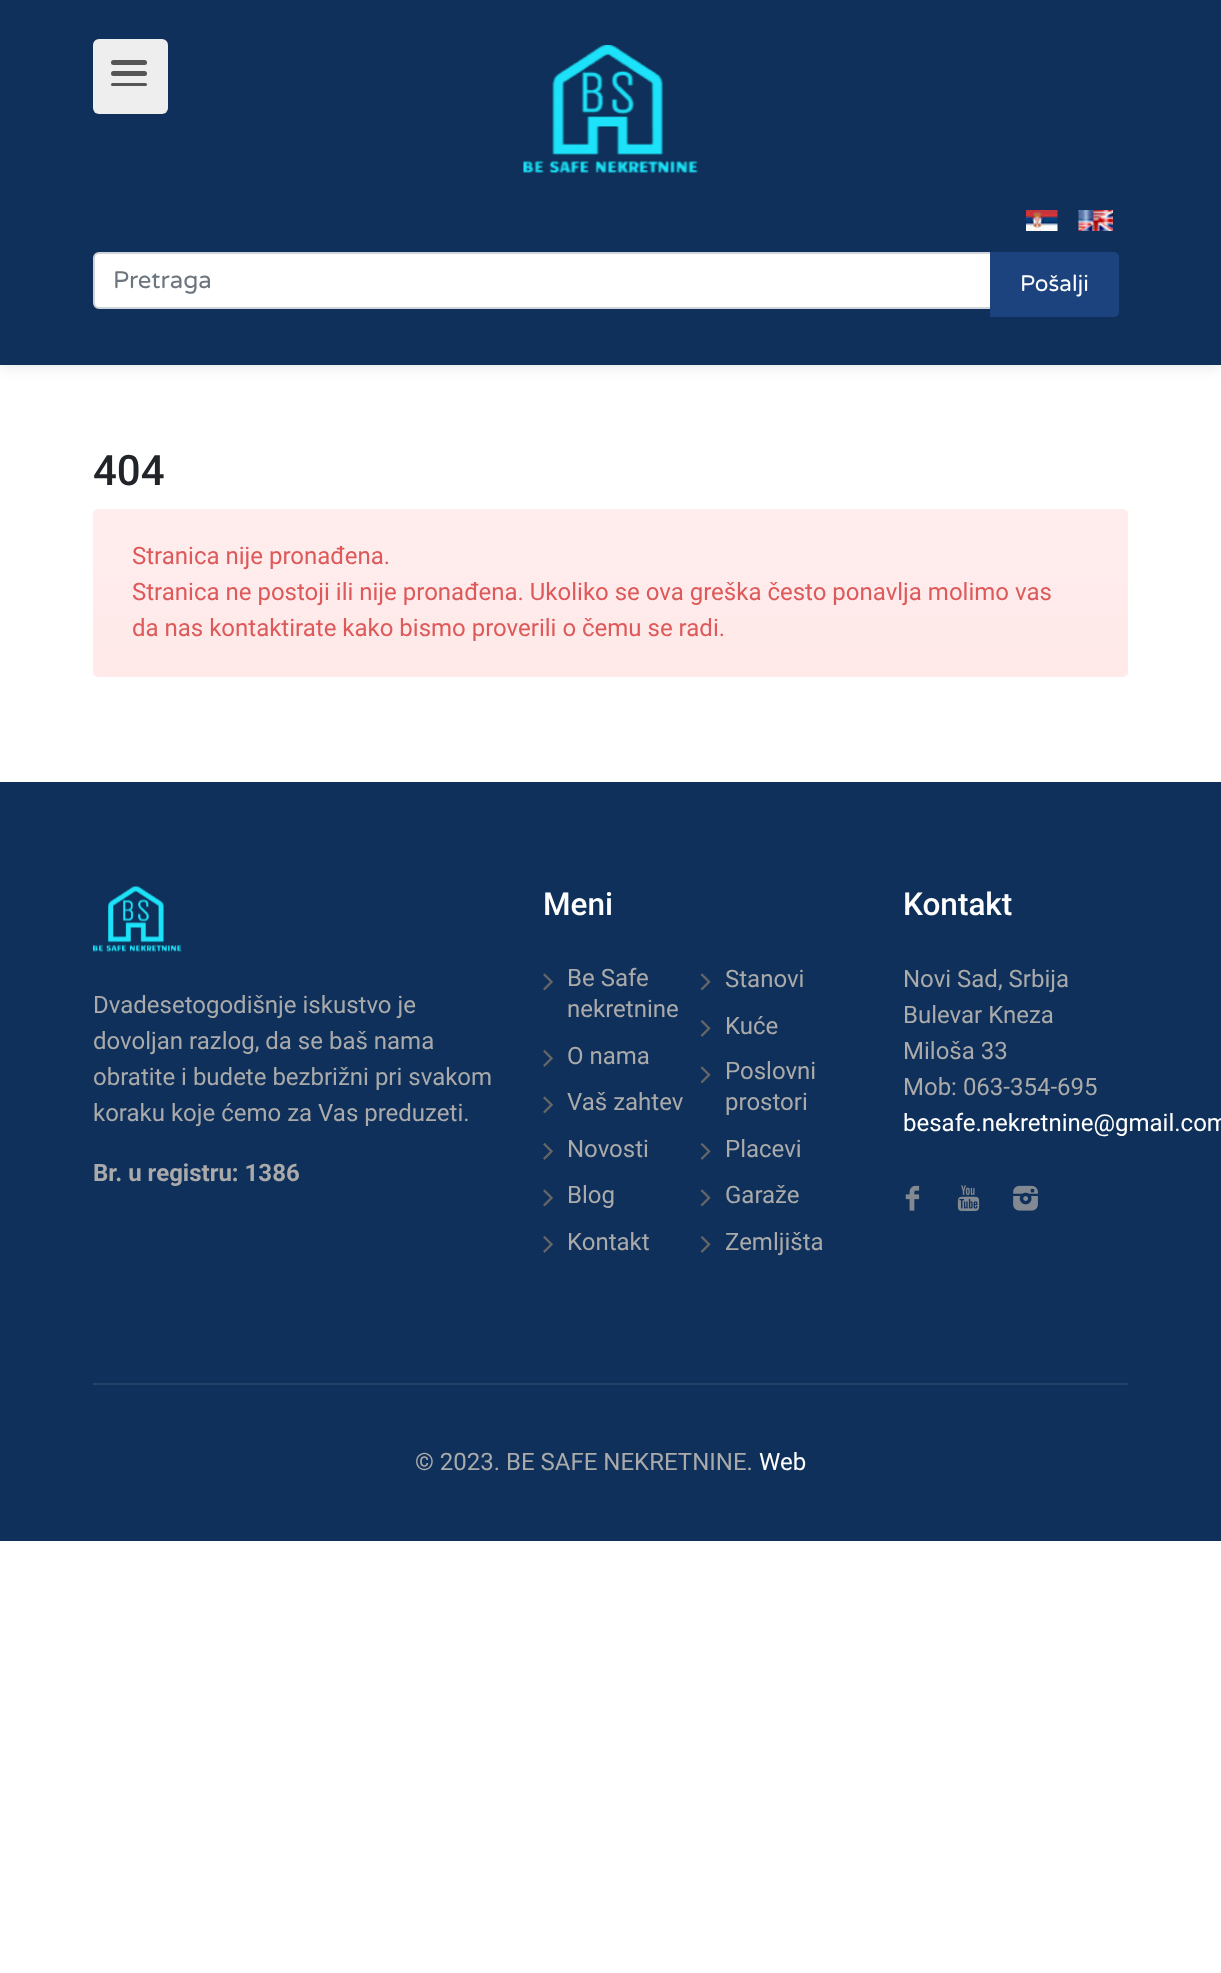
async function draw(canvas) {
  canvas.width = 1221
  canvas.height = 1973
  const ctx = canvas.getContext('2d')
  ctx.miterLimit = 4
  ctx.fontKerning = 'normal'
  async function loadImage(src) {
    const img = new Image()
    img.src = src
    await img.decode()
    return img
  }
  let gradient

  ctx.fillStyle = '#fff'
  ctx.fillRect(0, 0, 1221, 1973)
  ctx.fillStyle = '#0000001f'
  ctx.filter = 'blur(7.5px)'
  ctx.beginPath()
  ctx.rect(0, 0, 1221, 365)
  ctx.fill()
  ctx.filter = 'none'
  ctx.fillStyle = '#0f305a'
  ctx.fillRect(0, 0, 1221, 365)
  ctx.fillStyle = '#eee'
  ctx.beginPath()
  ctx.roundRect(93, 39, 75, 75, 6)
  ctx.fill()
  ctx.fillStyle = '#555'
  ctx.beginPath()
  ctx.roundRect(111, 83, 36, 3, 1.5)
  ctx.fill()
  ctx.beginPath()
  ctx.roundRect(111, 60, 36, 5, 2.5)
  ctx.fill()
  ctx.beginPath()
  ctx.roundRect(111, 71, 36, 5, 2.5)
  ctx.fill()
  ctx.drawImage(await loadImage('image0.png'), 523, 45, 175, 128)
  ctx.drawImage(await loadImage('image1.png'), 1026, 210, 32, 21)
  ctx.drawImage(await loadImage('image2.png'), 1078, 210, 35, 21)
  ctx.fillStyle = '#fff'
  ctx.beginPath()
  ctx.roundRect(94, 253, 897, 55, [5, 0, 0, 5])
  ctx.fill()
  ctx.strokeStyle = '#ced4da'
  ctx.lineWidth = 2
  ctx.stroke()
  ctx.font = '24px Varela Round'
  ctx.fillStyle = '#6c757d'
  ctx.fillText('Pretraga', 113, 288)
  ctx.fillStyle = '#1c437d'
  ctx.beginPath()
  ctx.roundRect(990, 252, 129, 65, [0, 5, 5, 0])
  ctx.fill()
  ctx.font = '22.5px Varela Round'
  ctx.fillStyle = '#fff'
  ctx.fillText('Pošalji', 1020, 291)
  ctx.font = '500 42px Roboto'
  ctx.fillStyle = '#212529'
  ctx.fillText('404', 93, 485)
  ctx.fillStyle = '#ffe9e9'
  ctx.beginPath()
  ctx.roundRect(93, 509, 1035, 168, 5)
  ctx.fill()
  gradient = ctx.createLinearGradient(611, 508, 611, 677)
  gradient.addColorStop(0, '#ffffff33')
  gradient.addColorStop(1, '#ffffff00')
  ctx.fillStyle = gradient
  ctx.beginPath()
  ctx.roundRect(93, 509, 1035, 168, 5)
  ctx.fill()
  ctx.font = '24px Roboto'
  ctx.fillStyle = '#de5959'
  ctx.fillText('Stranica nije pronađena.', 132, 564)
  ctx.fillText('Stranica ne postoji ili nije pronađena. Ukoliko se ova greška često ponavlja molimo vas', 132, 600)
  ctx.fillText('da nas kontaktirate kako bismo proverili o čemu se radi.', 132, 636)
  ctx.fillStyle = '#0f305a'
  ctx.fillRect(0, 782, 1221, 759)
  ctx.drawImage(await loadImage('image3.png'), 93, 886, 89, 66)
  ctx.fillStyle = '#aaa'
  ctx.fillText('Dvadesetogodišnje iskustvo je', 93, 1013)
  ctx.fillText('dovoljan razlog, da se baš nama', 93, 1049)
  ctx.fillText('obratite i budete bezbrižni pri svakom', 93, 1085)
  ctx.fillText('koraku koje ćemo za Vas preduzeti.', 93, 1121)
  ctx.font = 'bold 24px Roboto'
  ctx.fillText('Br. u registru: 1386', 93, 1181)
  ctx.font = '500 31.5px Roboto'
  ctx.fillStyle = '#fff'
  ctx.fillText('Meni', 543, 915)
  ctx.drawImage(await loadImage('image4.png'), 543, 973, 10, 18)
  ctx.font = '24px Roboto'
  ctx.fillStyle = '#aaa'
  ctx.fillText('Be Safe', 567, 986)
  ctx.fillText('nekretnine', 567, 1017)
  ctx.drawImage(await loadImage('image5.png'), 543, 1050, 10, 17)
  ctx.fillText('O nama', 567, 1064)
  ctx.drawImage(await loadImage('image4.png'), 543, 1096, 10, 18)
  ctx.fillText('Vaš zahtev', 567, 1110)
  ctx.drawImage(await loadImage('image5.png'), 543, 1143, 10, 17)
  ctx.fillText('Novosti', 567, 1157)
  ctx.drawImage(await loadImage('image4.png'), 543, 1189, 10, 18)
  ctx.fillText('Blog', 567, 1203)
  ctx.drawImage(await loadImage('image5.png'), 543, 1236, 10, 17)
  ctx.fillText('Kontakt', 567, 1250)
  ctx.drawImage(await loadImage('image6.png'), 700, 973, 11, 18)
  ctx.fillText('Stanovi', 725, 987)
  ctx.drawImage(await loadImage('image7.png'), 700, 1020, 11, 17)
  ctx.fillText('Kuće', 725, 1034)
  ctx.drawImage(await loadImage('image6.png'), 700, 1066, 11, 18)
  ctx.fillText('Poslovni', 725, 1079)
  ctx.fillText('prostori', 725, 1110)
  ctx.drawImage(await loadImage('image7.png'), 700, 1143, 11, 17)
  ctx.fillText('Placevi', 725, 1157)
  ctx.drawImage(await loadImage('image6.png'), 700, 1189, 11, 18)
  ctx.fillText('Garaže', 725, 1203)
  ctx.drawImage(await loadImage('image7.png'), 700, 1236, 11, 17)
  ctx.fillText('Zemljišta', 725, 1250)
  ctx.font = '500 31.5px Roboto'
  ctx.fillStyle = '#fff'
  ctx.fillText('Kontakt', 903, 915)
  ctx.font = '24px Roboto'
  ctx.fillStyle = '#aaa'
  ctx.fillText('Novi Sad, Srbija', 903, 987)
  ctx.fillText('Bulevar Kneza', 903, 1023)
  ctx.fillText('Miloša 33', 903, 1059)
  ctx.fillText('Mob: 063-354-695', 903, 1095)
  ctx.fillStyle = '#fff'
  ctx.fillText('besafe.nekretnine@gmail.com', 903, 1131)
  ctx.drawImage(await loadImage('image8.png'), 905, 1185, 15, 26)
  ctx.drawImage(await loadImage('image9.png'), 957, 1185, 23, 26)
  ctx.drawImage(await loadImage('image10.png'), 1013, 1185, 25, 26)
  ctx.fillStyle = '#254369'
  ctx.fillRect(93, 1383, 1035, 2)
  ctx.fillStyle = '#aaa'
  ctx.fillText('© 2023. BE SAFE NEKRETNINE.', 415, 1470)
  ctx.fillStyle = '#fff'
  ctx.fillText('Web', 759, 1470)
}

draw(document.querySelector('canvas'))
